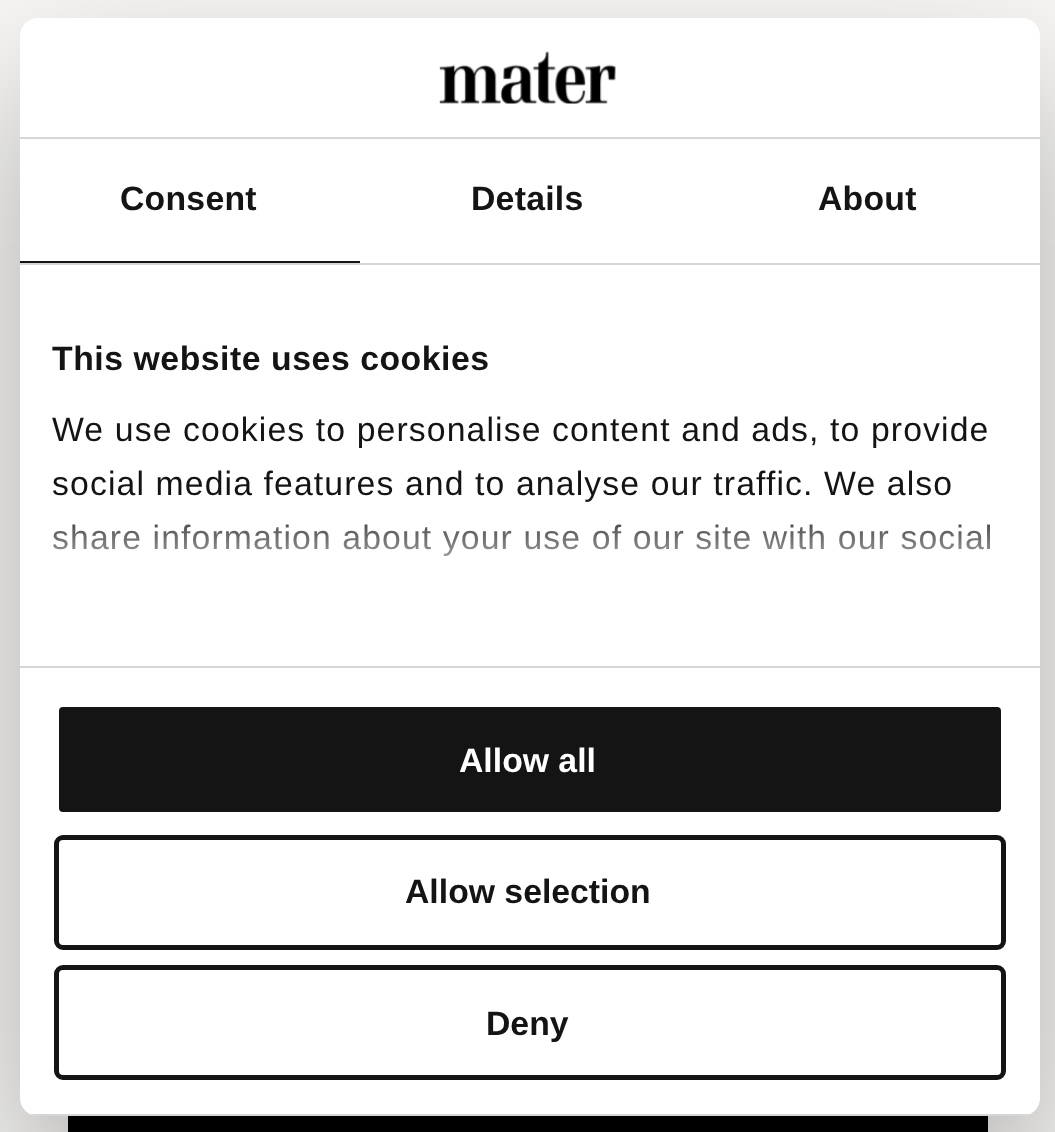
async function draw(canvas) {
  canvas.width = 1055
  canvas.height = 1132
  const ctx = canvas.getContext('2d')
  ctx.miterLimit = 4
  ctx.fontKerning = 'normal'
  async function loadImage(src) {
    const img = new Image()
    img.src = src
    await img.decode()
    return img
  }
  let gradient

  ctx.fillStyle = '#f7f6f4'
  ctx.fillRect(0, 0, 1055, 1132)
  ctx.fillStyle = '#000'
  ctx.fillRect(68, 1116, 920, 16)
  ctx.fillStyle = '#0000004d'
  ctx.filter = 'blur(76.5px)'
  ctx.beginPath()
  ctx.roundRect(20, 90, 1020, 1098, 18)
  ctx.fill()
  ctx.filter = 'none'
  ctx.fillStyle = '#fff'
  ctx.beginPath()
  ctx.roundRect(20, 18, 1020, 1098, 18)
  ctx.fill()
  ctx.fillStyle = '#d6d6d6'
  ctx.fillRect(20, 137, 1020, 2)
  ctx.drawImage(await loadImage('image0.png'), 439, 51, 177, 53)
  ctx.fillRect(20, 263, 1020, 2)
  ctx.fillStyle = '#141414'
  ctx.fillRect(20, 261, 340, 2)
  ctx.letterSpacing = '0.25px'
  ctx.font = 'bold 33.75px Liberation Sans'
  ctx.fillText('Consent', 120, 210)
  ctx.fillText('Details', 471, 210)
  ctx.fillText('About', 818, 210)
  ctx.fillStyle = '#d6d6d6'
  ctx.fillRect(20, 666, 1020, 2)
  ctx.letterSpacing = '0.55px'
  ctx.fillStyle = '#141414'
  ctx.fillText('This website uses cookies', 52, 370)
  ctx.letterSpacing = '1.12px'
  ctx.font = '33.75px Liberation Sans'
  ctx.fillText('We use cookies to personalise content and ads, to provide', 52, 441)
  ctx.fillText('social media features and to analyse our traffic. We also', 52, 495)
  ctx.fillText('share information about your use of our site with our social', 52, 549)
  gradient = ctx.createLinearGradient(514, 666, 514, 497)
  gradient.addColorStop(0, '#fff')
  gradient.addColorStop(0.5, '#ffffffcc')
  gradient.addColorStop(1, '#ffffff00')
  ctx.fillStyle = gradient
  ctx.fillRect(52, 499, 939, 57)
  ctx.save()
  ctx.beginPath()
  ctx.roundRect(20, 18, 1020, 1098, 18)
  ctx.clip()
  ctx.fillStyle = '#d6d6d6'
  ctx.fillRect(30, 1114, 1000, 2)
  ctx.restore()
  ctx.fillStyle = '#141414'
  ctx.beginPath()
  ctx.roundRect(56.5, 704.5, 947, 110, 6.5)
  ctx.fill()
  ctx.strokeStyle = '#fff'
  ctx.lineWidth = 5
  ctx.stroke()
  ctx.letterSpacing = '0px'
  ctx.font = 'bold 33.75px Liberation Sans'
  ctx.fillStyle = '#fff'
  ctx.fillText('Allow all', 459, 772)
  ctx.beginPath()
  ctx.roundRect(56.5, 837.5, 947, 110, 6.5)
  ctx.strokeStyle = '#141414'
  ctx.stroke()
  ctx.fillStyle = '#141414'
  ctx.fillText('Allow selection', 405, 903)
  ctx.beginPath()
  ctx.roundRect(56.5, 967.5, 947, 110, 6.5)
  ctx.stroke()
  ctx.fillText('Deny', 486, 1035)
}

draw(document.querySelector('canvas'))
